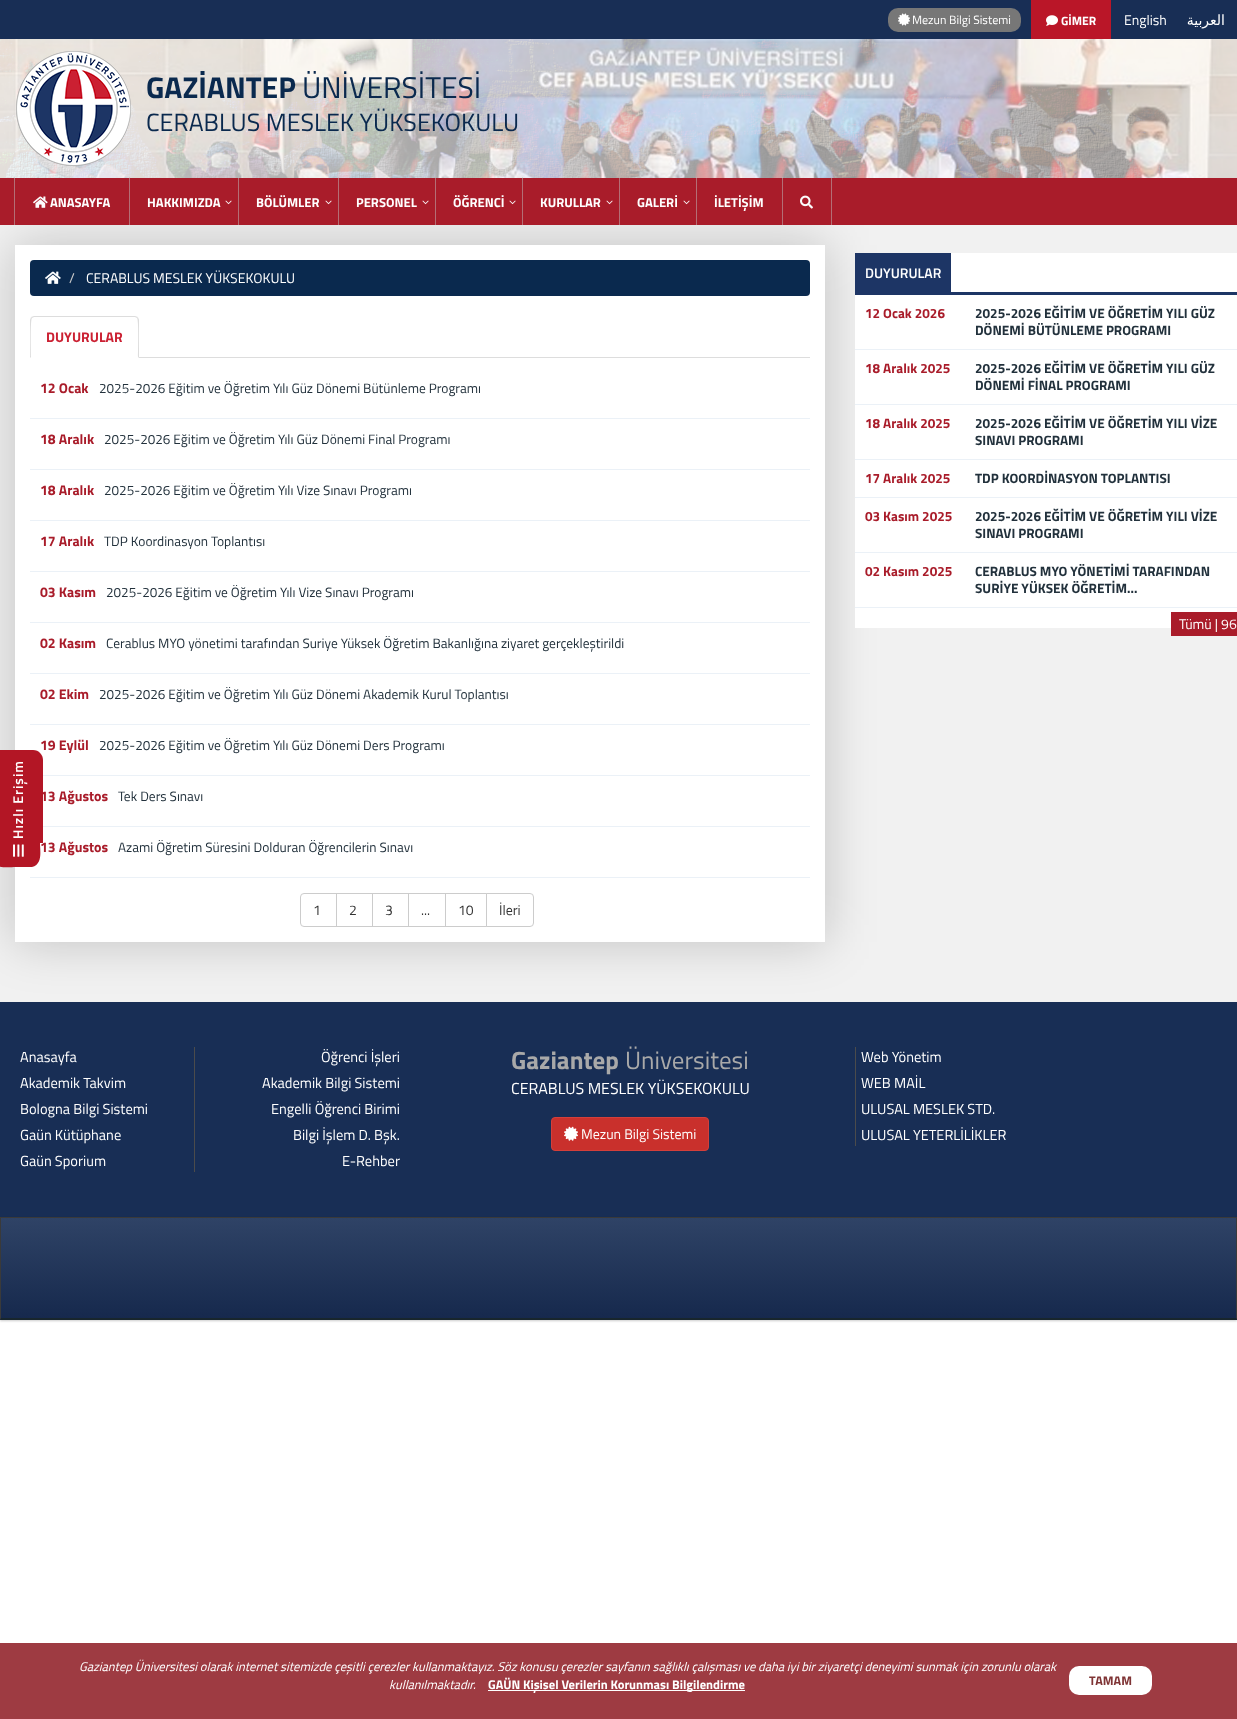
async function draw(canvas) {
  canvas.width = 1237
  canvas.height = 1719
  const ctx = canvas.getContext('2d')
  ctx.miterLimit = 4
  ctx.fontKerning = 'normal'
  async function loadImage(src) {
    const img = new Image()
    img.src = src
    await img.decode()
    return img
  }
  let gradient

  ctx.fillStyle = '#fff'
  ctx.fillRect(0, 0, 1237, 1719)
  ctx.fillStyle = '#182e55'
  ctx.fillRect(0, 0, 1237, 39)
  ctx.fillStyle = '#777'
  ctx.beginPath()
  ctx.roundRect(888, 8, 133, 24, 10)
  ctx.fill()
  ctx.drawImage(await loadImage('image0.png'), 898, 13, 12, 13)
  ctx.font = '12px Titillium Web'
  ctx.fillStyle = '#fff'
  ctx.fillText('Mezun Bilgi Sistemi', 912, 24)
  ctx.fillStyle = '#ba1628'
  ctx.fillRect(1031, 0, 27, 39)
  ctx.fillRect(1058, 0, 3, 45)
  ctx.fillRect(1061, 0, 50, 39)
  ctx.drawImage(await loadImage('image1.png'), 1046, 15, 12, 11)
  ctx.font = 'bold 12px Titillium Web'
  ctx.fillStyle = '#fff'
  ctx.fillText('GİMER', 1061, 25)
  ctx.font = '14px Titillium Web'
  ctx.fillText('English', 1124, 25)
  ctx.direction = 'rtl'
  ctx.font = '14px DejaVu Sans'
  ctx.fillText('العربية', 1225, 25)
  ctx.fillRect(1058, 39, 3, 6)
  ctx.drawImage(await loadImage('image2.png'), 0, 39, 1237, 139)
  ctx.drawImage(await loadImage('image3.png'), 16, 51, 115, 115)
  ctx.direction = 'ltr'
  ctx.font = 'bold 30px Titillium Web'
  ctx.fillStyle = '#0a294e'
  ctx.fillText('GAZİANTEP', 146, 98)
  ctx.font = '30px Titillium Web'
  ctx.fillText('ÜNİVERSİTESİ', 302, 98)
  ctx.font = '25px Titillium Web'
  ctx.fillText('CERABLUS MESLEK YÜKSEKOKULU', 146, 131)
  ctx.fillStyle = '#f1f1f1'
  ctx.fillRect(0, 225, 1237, 777)
  ctx.fillStyle = '#00000033'
  ctx.filter = 'blur(25px)'
  ctx.beginPath()
  ctx.rect(15, 245, 810, 697)
  ctx.fill()
  ctx.filter = 'none'
  ctx.fillStyle = '#fff'
  ctx.fillRect(15, 245, 810, 697)
  ctx.fillStyle = '#b31625'
  ctx.beginPath()
  ctx.moveTo(-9, 857)
  ctx.lineTo(-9, 843)
  ctx.lineTo(40, 843)
  ctx.bezierCurveTo(40, 851, 43, 864, 32, 867)
  ctx.lineTo(16, 867)
  ctx.bezierCurveTo(8, 867, -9, 870, -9, 857)
  ctx.closePath()
  ctx.fill()
  ctx.font = 'bold 14px Titillium Web'
  ctx.fillStyle = '#a91c2a'
  ctx.fillText('19 Eylül', 40, 750)
  ctx.fillText('13 Ağustos', 40, 801)
  ctx.fillText('13 Ağustos', 40, 852)
  ctx.fillStyle = '#b31625'
  ctx.beginPath()
  ctx.moveTo(-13, 843)
  ctx.lineTo(-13, 760)
  ctx.bezierCurveTo(-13, 755, -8, 750, -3, 750)
  ctx.lineTo(33, 750)
  ctx.bezierCurveTo(39, 750, 43, 755, 43, 760)
  ctx.lineTo(43, 843)
  ctx.closePath()
  ctx.fill()
  ctx.letterSpacing = '1px'
  ctx.font = '600 14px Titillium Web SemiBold'
  ctx.fillStyle = '#fff'
  ctx.save()
  ctx.translate(23, 839)
  ctx.rotate(-90 * Math.PI / 180)
  ctx.fillText('Hızlı Erişim', 0, 0)
  ctx.restore()
  ctx.drawImage(await loadImage('image4.png'), 13, 844, 11, 13)
  ctx.fillStyle = '#a91c2a'
  ctx.fillRect(0, 178, 1237, 47)
  ctx.fillStyle = '#bfbfbf80'
  ctx.fillRect(129, 177, 1, 48)
  ctx.fillRect(14, 177, 1, 48)
  ctx.drawImage(await loadImage('image5.png'), 33, 196, 15, 12)
  ctx.letterSpacing = '0px'
  ctx.font = 'bold 13px Titillium Web'
  ctx.fillStyle = '#fff'
  ctx.fillText('ANASAYFA', 50, 207)
  ctx.fillStyle = '#bfbfbf80'
  ctx.fillRect(238, 177, 1, 48)
  ctx.fillStyle = '#fff'
  ctx.fillText('HAKKIMIZDA', 147, 207)
  ctx.drawImage(await loadImage('image6.png'), 225, 200, 7, 5)
  ctx.fillStyle = '#bfbfbf80'
  ctx.fillRect(338, 177, 1, 48)
  ctx.fillStyle = '#fff'
  ctx.fillText('BÖLÜMLER', 256, 207)
  ctx.drawImage(await loadImage('image6.png'), 325, 200, 7, 5)
  ctx.fillStyle = '#bfbfbf80'
  ctx.fillRect(435, 177, 1, 48)
  ctx.fillStyle = '#fff'
  ctx.fillText('PERSONEL', 356, 207)
  ctx.drawImage(await loadImage('image6.png'), 422, 200, 7, 5)
  ctx.fillStyle = '#bfbfbf80'
  ctx.fillRect(522, 177, 1, 48)
  ctx.fillStyle = '#fff'
  ctx.fillText('ÖĞRENCİ', 453, 207)
  ctx.drawImage(await loadImage('image6.png'), 509, 200, 7, 5)
  ctx.fillStyle = '#bfbfbf80'
  ctx.fillRect(619, 177, 1, 48)
  ctx.fillStyle = '#fff'
  ctx.fillText('KURULLAR', 540, 207)
  ctx.drawImage(await loadImage('image6.png'), 606, 200, 7, 5)
  ctx.fillStyle = '#bfbfbf80'
  ctx.fillRect(696, 177, 1, 48)
  ctx.fillStyle = '#fff'
  ctx.fillText('GALERİ', 637, 207)
  ctx.drawImage(await loadImage('image6.png'), 683, 200, 7, 5)
  ctx.fillStyle = '#bfbfbf80'
  ctx.fillRect(782, 177, 1, 48)
  ctx.fillStyle = '#fff'
  ctx.fillText('İLETİŞİM', 714, 207)
  ctx.fillStyle = '#bfbfbf80'
  ctx.fillRect(831, 177, 1, 48)
  ctx.drawImage(await loadImage('image7.png'), 800, 195, 13, 14)
  ctx.fillStyle = '#0a294e'
  ctx.beginPath()
  ctx.roundRect(30, 260, 780, 36, 4)
  ctx.fill()
  ctx.drawImage(await loadImage('image8.png'), 45, 271, 16, 13)
  ctx.font = '14px Titillium Web'
  ctx.fillStyle = '#ccc'
  ctx.fillText('/', 69, 283)
  ctx.fillStyle = '#fff'
  ctx.fillText('CERABLUS MESLEK YÜKSEKOKULU', 86, 283)
  ctx.fillStyle = '#ddd'
  ctx.fillRect(139, 357, 671, 1)
  ctx.beginPath()
  ctx.moveTo(34, 316)
  ctx.lineTo(31, 317)
  ctx.lineTo(32, 318)
  ctx.lineTo(34, 317)
  ctx.lineTo(135, 317)
  ctx.lineTo(137, 318)
  ctx.lineTo(138, 317)
  ctx.lineTo(135, 316)
  ctx.closePath()
  ctx.fill()
  ctx.beginPath()
  ctx.moveTo(139, 358)
  ctx.lineTo(139, 320)
  ctx.bezierCurveTo(139, 319, 138, 318, 138, 317)
  ctx.lineTo(137, 318)
  ctx.bezierCurveTo(139, 320, 138, 352, 138, 357)
  ctx.closePath()
  ctx.fill()
  ctx.beginPath()
  ctx.moveTo(30, 358)
  ctx.lineTo(31, 357)
  ctx.bezierCurveTo(31, 352, 30, 320, 32, 318)
  ctx.lineTo(31, 317)
  ctx.lineTo(30, 320)
  ctx.closePath()
  ctx.fill()
  ctx.font = 'bold 14px Titillium Web'
  ctx.fillStyle = '#cb2032'
  ctx.fillText('DUYURULAR', 46, 342)
  ctx.fillStyle = '#a91c2a'
  ctx.fillText('12 Ocak', 40, 393)
  ctx.font = '13.5px Titillium Web'
  ctx.fillStyle = '#22313c'
  ctx.fillText('2025-2026 Eğitim ve Öğretim Yılı Güz Dönemi Bütünleme Programı', 99, 393)
  ctx.fillStyle = '#ebf1f7'
  ctx.fillRect(30, 418, 780, 1)
  ctx.font = 'bold 14px Titillium Web'
  ctx.fillStyle = '#a91c2a'
  ctx.fillText('18 Aralık', 40, 444)
  ctx.font = '13.5px Titillium Web'
  ctx.fillStyle = '#22313c'
  ctx.fillText('2025-2026 Eğitim ve Öğretim Yılı Güz Dönemi Final Programı', 104, 444)
  ctx.fillStyle = '#ebf1f7'
  ctx.fillRect(30, 469, 780, 1)
  ctx.font = 'bold 14px Titillium Web'
  ctx.fillStyle = '#a91c2a'
  ctx.fillText('18 Aralık', 40, 495)
  ctx.font = '13.5px Titillium Web'
  ctx.fillStyle = '#22313c'
  ctx.fillText('2025-2026 Eğitim ve Öğretim Yılı Vize Sınavı Programı', 104, 495)
  ctx.fillStyle = '#ebf1f7'
  ctx.fillRect(30, 520, 780, 1)
  ctx.font = 'bold 14px Titillium Web'
  ctx.fillStyle = '#a91c2a'
  ctx.fillText('17 Aralık', 40, 546)
  ctx.font = '13.5px Titillium Web'
  ctx.fillStyle = '#22313c'
  ctx.fillText('TDP Koordinasyon Toplantısı', 104, 546)
  ctx.fillStyle = '#ebf1f7'
  ctx.fillRect(30, 571, 780, 1)
  ctx.font = 'bold 14px Titillium Web'
  ctx.fillStyle = '#a91c2a'
  ctx.fillText('03 Kasım', 40, 597)
  ctx.font = '13.5px Titillium Web'
  ctx.fillStyle = '#22313c'
  ctx.fillText('2025-2026 Eğitim ve Öğretim Yılı Vize Sınavı Programı', 106, 597)
  ctx.fillStyle = '#ebf1f7'
  ctx.fillRect(30, 622, 780, 1)
  ctx.font = 'bold 14px Titillium Web'
  ctx.fillStyle = '#a91c2a'
  ctx.fillText('02 Kasım', 40, 648)
  ctx.font = '13.5px Titillium Web'
  ctx.fillStyle = '#22313c'
  ctx.fillText('Cerablus MYO yönetimi tarafından Suriye Yüksek Öğretim Bakanlığına ziyaret gerçekleştirildi', 106, 648)
  ctx.fillStyle = '#ebf1f7'
  ctx.fillRect(30, 673, 780, 1)
  ctx.font = 'bold 14px Titillium Web'
  ctx.fillStyle = '#a91c2a'
  ctx.fillText('02 Ekim', 40, 699)
  ctx.font = '13.5px Titillium Web'
  ctx.fillStyle = '#22313c'
  ctx.fillText('2025-2026 Eğitim ve Öğretim Yılı Güz Dönemi Akademik Kurul Toplantısı', 99, 699)
  ctx.fillStyle = '#ebf1f7'
  ctx.fillRect(30, 724, 780, 1)
  ctx.fillStyle = '#22313c'
  ctx.fillText('2025-2026 Eğitim ve Öğretim Yılı Güz Dönemi Ders Programı', 99, 750)
  ctx.fillStyle = '#ebf1f7'
  ctx.fillRect(43, 775, 767, 1)
  ctx.fillStyle = '#22313c'
  ctx.fillText('Tek Ders Sınavı', 118, 801)
  ctx.fillStyle = '#ebf1f7'
  ctx.fillRect(43, 826, 767, 1)
  ctx.fillStyle = '#22313c'
  ctx.fillText('Azami Öğretim Süresini Dolduran Öğrencilerin Sınavı', 118, 852)
  ctx.fillStyle = '#ebf1f7'
  ctx.fillRect(30, 877, 780, 1)
  ctx.beginPath()
  ctx.roundRect(300.5, 893.5, 36, 33, [3.5, 0, 0, 3.5])
  ctx.strokeStyle = '#ccc'
  ctx.stroke()
  ctx.font = '14px Titillium Web'
  ctx.fillStyle = '#333'
  ctx.fillText('1', 313, 915)
  ctx.strokeRect(336.5, 893.5, 36, 33)
  ctx.fillText('2', 349, 915)
  ctx.strokeRect(372.5, 893.5, 36, 33)
  ctx.fillText('3', 385, 915)
  ctx.strokeRect(408.5, 893.5, 37, 33)
  ctx.fillText('...', 421, 915)
  ctx.strokeRect(445.5, 893.5, 41, 33)
  ctx.fillText('10', 458, 915)
  ctx.fillStyle = '#fff'
  ctx.beginPath()
  ctx.roundRect(486.5, 893.5, 47, 33, [0, 3.5, 3.5, 0])
  ctx.fill()
  ctx.stroke()
  ctx.fillStyle = '#333'
  ctx.fillText('İleri', 499, 915)
  ctx.fillStyle = '#fff'
  ctx.fillRect(855, 253, 382, 375)
  ctx.fillStyle = '#1d3565'
  ctx.fillRect(855, 292, 382, 3)
  ctx.fillRect(855, 253, 96, 39)
  ctx.font = '600 14px Titillium Web SemiBold'
  ctx.fillStyle = '#fff'
  ctx.fillText('DUYURULAR', 865, 278)
  ctx.font = 'bold 13.5px Titillium Web'
  ctx.fillStyle = '#a91c2a'
  ctx.fillText('12 Ocak 2026', 865, 318)
  ctx.fillStyle = '#22313c'
  ctx.fillText('2025-2026 EĞİTİM VE ÖĞRETİM YILI GÜZ', 975, 318)
  ctx.fillText('DÖNEMİ BÜTÜNLEME PROGRAMI', 975, 335)
  ctx.fillStyle = '#ebf1f7'
  ctx.fillRect(855, 349, 382, 1)
  ctx.fillStyle = '#a91c2a'
  ctx.fillText('18 Aralık 2025', 865, 373)
  ctx.fillStyle = '#22313c'
  ctx.fillText('2025-2026 EĞİTİM VE ÖĞRETİM YILI GÜZ', 975, 373)
  ctx.fillText('DÖNEMİ FİNAL PROGRAMI', 975, 390)
  ctx.fillStyle = '#ebf1f7'
  ctx.fillRect(855, 404, 382, 1)
  ctx.fillStyle = '#a91c2a'
  ctx.fillText('18 Aralık 2025', 865, 428)
  ctx.fillStyle = '#22313c'
  ctx.fillText('2025-2026 EĞİTİM VE ÖĞRETİM YILI VİZE', 975, 428)
  ctx.fillText('SINAVI PROGRAMI', 975, 445)
  ctx.fillStyle = '#ebf1f7'
  ctx.fillRect(855, 459, 382, 1)
  ctx.fillStyle = '#a91c2a'
  ctx.fillText('17 Aralık 2025', 865, 483)
  ctx.fillStyle = '#22313c'
  ctx.fillText('TDP KOORDİNASYON TOPLANTISI', 975, 483)
  ctx.fillStyle = '#ebf1f7'
  ctx.fillRect(855, 497, 382, 1)
  ctx.fillStyle = '#a91c2a'
  ctx.fillText('03 Kasım 2025', 865, 521)
  ctx.fillStyle = '#22313c'
  ctx.fillText('2025-2026 EĞİTİM VE ÖĞRETİM YILI VİZE', 975, 521)
  ctx.fillText('SINAVI PROGRAMI', 975, 538)
  ctx.fillStyle = '#ebf1f7'
  ctx.fillRect(855, 552, 382, 1)
  ctx.fillStyle = '#a91c2a'
  ctx.fillText('02 Kasım 2025', 865, 576)
  ctx.fillStyle = '#22313c'
  ctx.fillText('CERABLUS MYO YÖNETİMİ TARAFINDAN', 975, 576)
  ctx.fillText('SURİYE YÜKSEK ÖĞRETİM...', 975, 593)
  ctx.fillStyle = '#ebf1f7'
  ctx.fillRect(855, 607, 382, 1)
  ctx.fillStyle = '#a91c2a'
  ctx.fillRect(1171, 612, 66, 24)
  ctx.font = '14px Titillium Web'
  ctx.fillStyle = '#fff'
  ctx.fillText('Tümü | 96', 1179, 629)
  ctx.fillStyle = '#182e55'
  ctx.fillRect(0, 1002, 1237, 318)
  ctx.fillStyle = '#4b4b4b'
  ctx.fillRect(194, 1047, 1, 125)
  ctx.font = '14.5px Titillium Web'
  ctx.fillStyle = '#fff'
  ctx.fillText('Anasayfa', 20, 1062)
  ctx.fillText('Akademik Takvim', 20, 1088)
  ctx.fillText('Bologna Bilgi Sistemi', 20, 1114)
  ctx.fillText('Gaün Kütüphane', 20, 1140)
  ctx.fillText('Gaün Sporium', 20, 1166)
  ctx.fillText('Öğrenci İşleri', 321, 1062)
  ctx.fillText('Akademik Bilgi Sistemi', 262, 1088)
  ctx.fillText('Engelli Öğrenci Birimi', 271, 1114)
  ctx.fillText('Bilgi İşlem D. Bşk.', 293, 1140)
  ctx.fillText('E-Rehber', 342, 1166)
  ctx.font = 'bold 25px Titillium Web'
  ctx.fillStyle = '#a9a9a9'
  ctx.fillText('Gaziantep', 511, 1069)
  ctx.font = '25px Titillium Web'
  ctx.fillText('Üniversitesi', 625, 1069)
  ctx.font = '16px Titillium Web'
  ctx.fillStyle = '#fff'
  ctx.fillText('CERABLUS MESLEK YÜKSEKOKULU', 511, 1094)
  ctx.fillStyle = '#c9302c'
  ctx.beginPath()
  ctx.roundRect(551.5, 1117.5, 157, 33, 3.5)
  ctx.fill()
  ctx.strokeStyle = '#d43f3a'
  ctx.stroke()
  ctx.drawImage(await loadImage('image9.png'), 564, 1126, 14, 15)
  ctx.font = '14px Titillium Web'
  ctx.fillStyle = '#fff'
  ctx.fillText('Mezun Bilgi Sistemi', 581, 1139)
  ctx.fillStyle = '#4b4b4b'
  ctx.fillRect(855, 1047, 1, 99)
  ctx.font = '14.5px Titillium Web'
  ctx.fillStyle = '#fff'
  ctx.fillText('Web Yönetim', 861, 1062)
  ctx.fillText('WEB MAİL', 861, 1088)
  ctx.fillText('ULUSAL MESLEK STD.', 861, 1114)
  ctx.fillText('ULUSAL YETERLİLİKLER', 861, 1140)
  ctx.fillStyle = '#00000033'
  ctx.filter = 'blur(1px)'
  ctx.beginPath()
  ctx.rect(0, 1218, 1237, 103)
  ctx.fill()
  ctx.filter = 'none'
  gradient = ctx.createLinearGradient(619, 1318, 619, 1218)
  gradient.addColorStop(0, '#16294d')
  gradient.addColorStop(1, '#2f4366')
  ctx.fillStyle = gradient
  ctx.fillRect(1, 1218, 1235, 100)
  ctx.fillStyle = '#3a3a3a'
  ctx.fillRect(0, 1217, 1237, 1)
  ctx.beginPath()
  ctx.moveTo(1237, 1217)
  ctx.lineTo(1237, 1320)
  ctx.lineTo(1236, 1318)
  ctx.lineTo(1236, 1218)
  ctx.closePath()
  ctx.fill()
  ctx.fillStyle = '#18262d'
  ctx.beginPath()
  ctx.moveTo(1237, 1320)
  ctx.lineTo(0, 1320)
  ctx.lineTo(1, 1318)
  ctx.lineTo(1236, 1318)
  ctx.closePath()
  ctx.fill()
  ctx.fillStyle = '#3a3a3a'
  ctx.beginPath()
  ctx.moveTo(0, 1320)
  ctx.lineTo(0, 1217)
  ctx.lineTo(1, 1218)
  ctx.lineTo(1, 1318)
  ctx.closePath()
  ctx.fill()
  ctx.fillStyle = '#9e3b42'
  ctx.fillRect(0, 1643, 1237, 76)
  ctx.font = 'italic 12.6px Titillium Web'
  ctx.fillStyle = '#fff'
  ctx.fillText('Gaziantep Üniversitesi olarak internet sitemizde çeşitli çerezler kullanmaktayız. Söz konusu çerezler sayfanın sağlıklı çalışması ve daha iyi bir ziyaretçi deneyimi sunmak için zorunlu olarak', 79, 1671)
  ctx.fillText('kullanılmaktadır.', 389, 1689)
  ctx.fillRect(488, 1690, 257, 1)
  ctx.font = 'bold 12.6px Titillium Web'
  ctx.fillText('GAÜN Kişisel Verilerin Korunması Bilgilendirme', 488, 1689)
  ctx.beginPath()
  ctx.roundRect(1069, 1666, 83, 29, 10)
  ctx.fill()
  ctx.fillStyle = '#7f3435'
  ctx.fillText('TAMAM', 1089, 1685)
}

draw(document.querySelector('canvas'))
